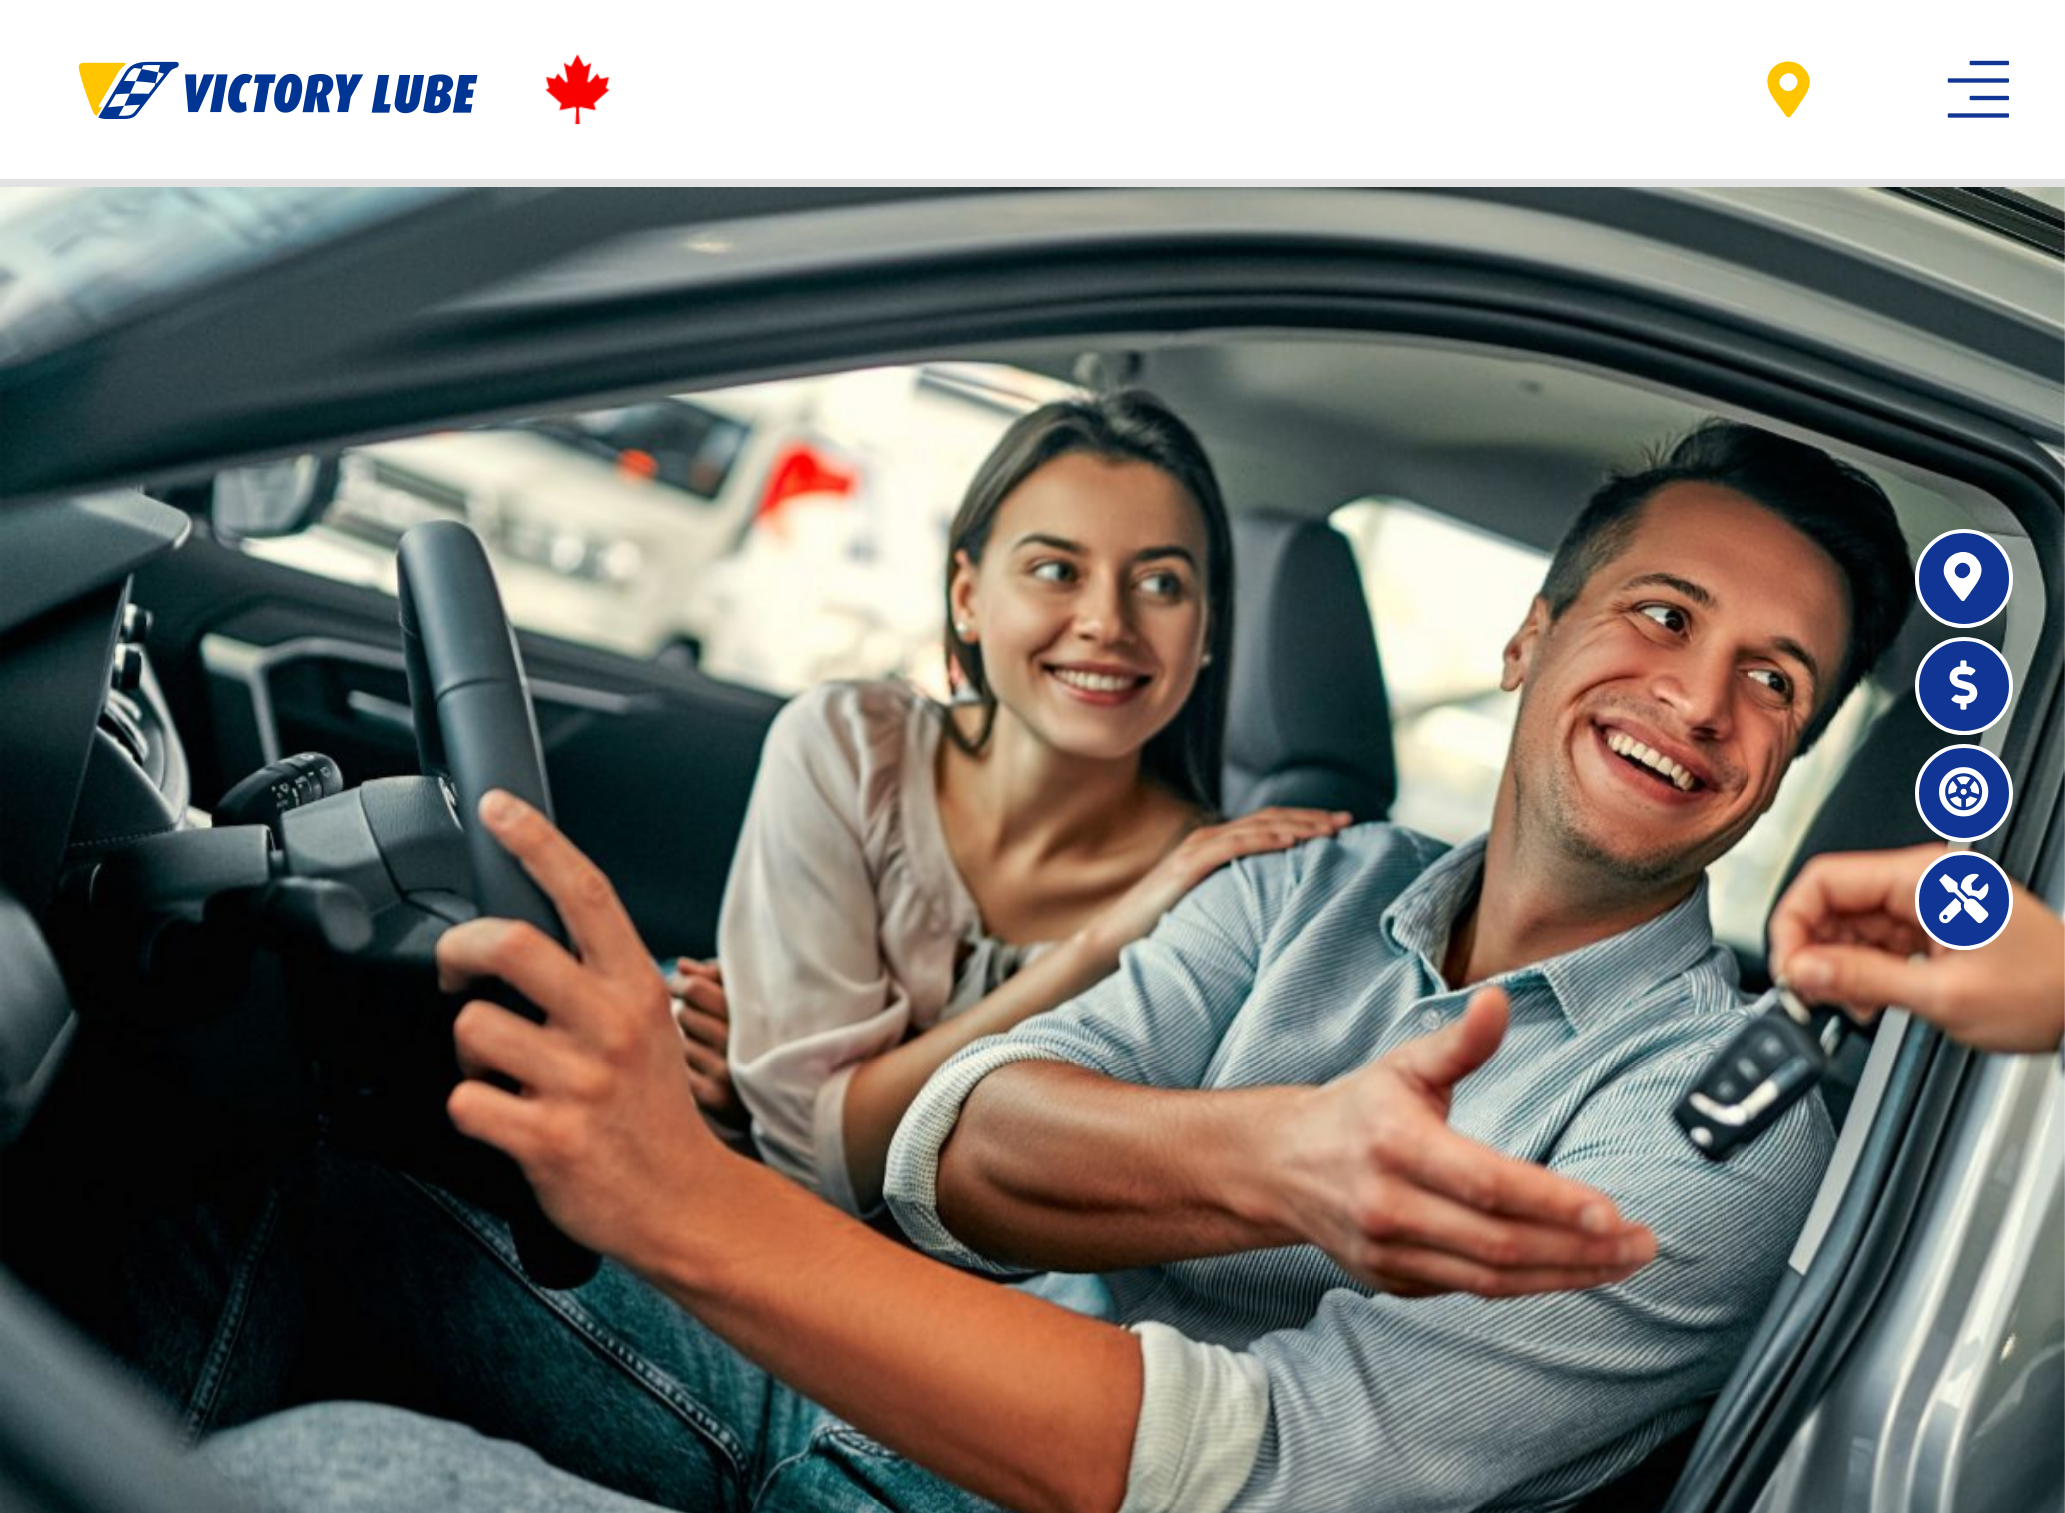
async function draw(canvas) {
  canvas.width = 2065
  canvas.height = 1513
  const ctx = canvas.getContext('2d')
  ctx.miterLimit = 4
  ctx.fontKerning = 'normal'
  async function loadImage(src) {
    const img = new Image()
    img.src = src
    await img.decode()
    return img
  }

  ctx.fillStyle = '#fff'
  ctx.fillRect(0, 0, 2065, 1513)
  ctx.fillStyle = '#e2e2e2'
  ctx.fillRect(0, 179, 2065, 8)
  ctx.drawImage(await loadImage('image0.png'), 78, 61, 400, 58)
  ctx.drawImage(await loadImage('image1.png'), 545, 54, 65, 71)
  ctx.fillStyle = '#ffc600'
  ctx.beginPath()
  ctx.moveTo(1786, 116)
  ctx.bezierCurveTo(1782, 109, 1769, 95, 1768, 86)
  ctx.bezierCurveTo(1763, 64, 1793, 52, 1806, 71)
  ctx.bezierCurveTo(1816, 85, 1804, 96, 1797, 108)
  ctx.lineTo(1790, 117)
  ctx.bezierCurveTo(1789, 118, 1787, 117, 1786, 116)
  ctx.closePath()
  ctx.moveTo(1782, 88)
  ctx.bezierCurveTo(1790, 97, 1803, 84, 1795, 76)
  ctx.bezierCurveTo(1787, 68, 1774, 80, 1782, 88)
  ctx.closePath()
  ctx.fill()
  ctx.drawImage(await loadImage('image2.png'), 1947, 60, 62, 58)
  ctx.drawImage(await loadImage('image3.png'), 0, 187, 2065, 1326)
  ctx.fillStyle = '#103595'
  ctx.beginPath()
  ctx.roundRect(1917, 531, 94, 95, 47)
  ctx.fill()
  ctx.strokeStyle = '#fff'
  ctx.lineWidth = 4
  ctx.stroke()
  ctx.fillStyle = '#fff'
  ctx.beginPath()
  ctx.moveTo(1961, 600)
  ctx.bezierCurveTo(1956, 594, 1946, 582, 1944, 574)
  ctx.bezierCurveTo(1941, 554, 1967, 544, 1978, 560)
  ctx.bezierCurveTo(1987, 572, 1977, 583, 1970, 593)
  ctx.lineTo(1964, 601)
  ctx.bezierCurveTo(1963, 601, 1961, 601, 1961, 600)
  ctx.closePath()
  ctx.moveTo(1957, 576)
  ctx.bezierCurveTo(1964, 583, 1975, 572, 1968, 565)
  ctx.bezierCurveTo(1961, 558, 1950, 569, 1957, 576)
  ctx.closePath()
  ctx.fill()
  ctx.fillStyle = '#103595'
  ctx.beginPath()
  ctx.arc(1964, 686, 47, 0, 2 * Math.PI)
  ctx.fill()
  ctx.stroke()
  ctx.drawImage(await loadImage('image4.png'), 1949, 660, 29, 50)
  ctx.beginPath()
  ctx.arc(1964, 793, 47, 0, 2 * Math.PI)
  ctx.fill()
  ctx.stroke()
  ctx.drawImage(await loadImage('image5.png'), 1939, 767, 50, 50)
  ctx.beginPath()
  ctx.roundRect(1917, 853, 94, 95, 47)
  ctx.fill()
  ctx.stroke()
  ctx.drawImage(await loadImage('image6.png'), 1939, 873, 50, 51)
}

draw(document.querySelector('canvas'))
